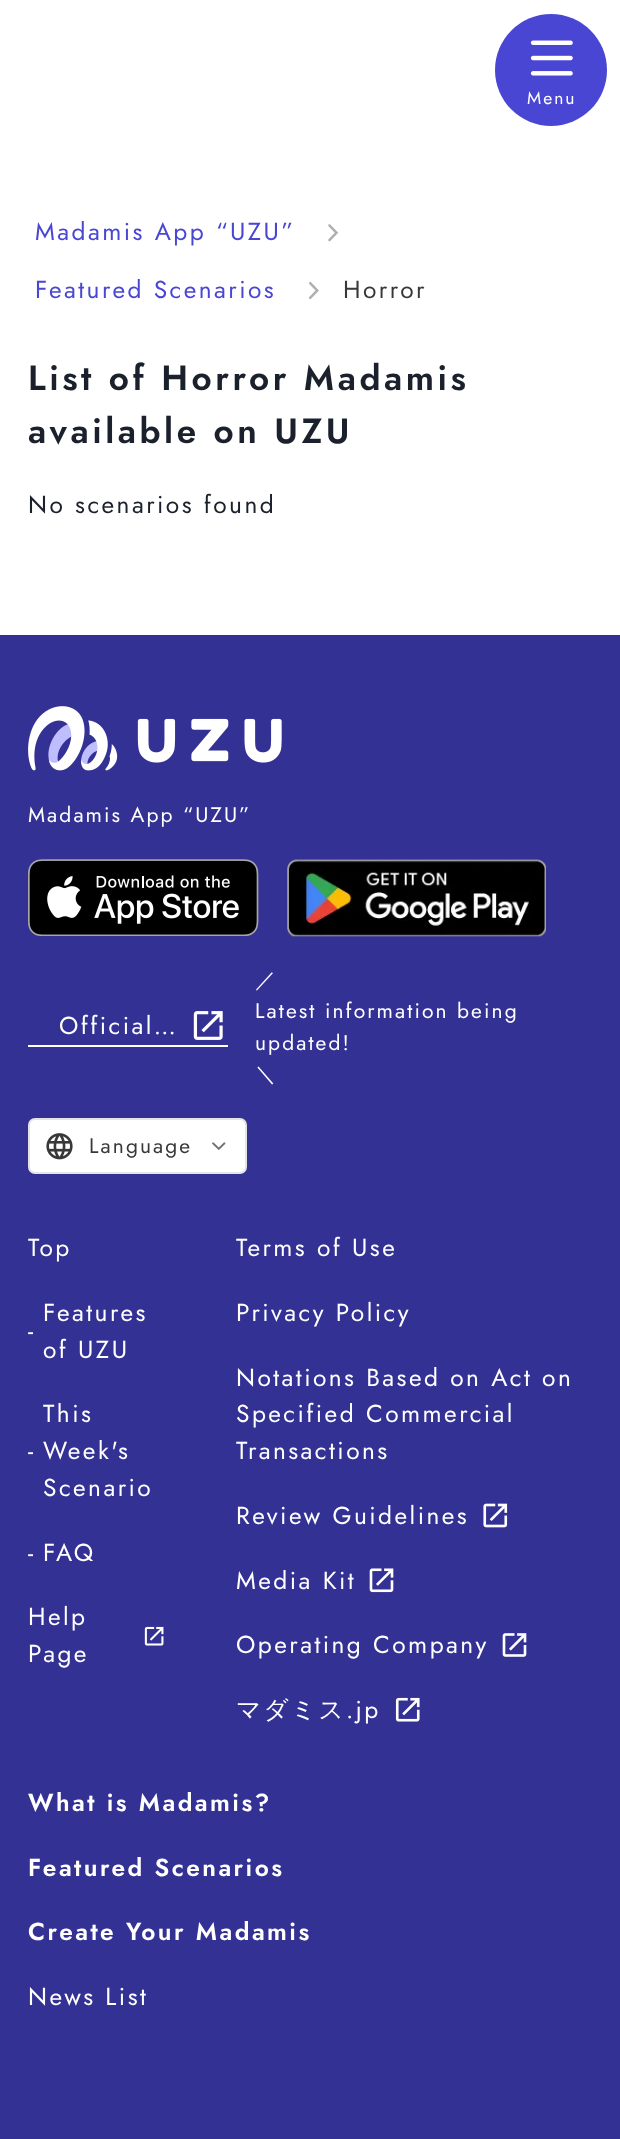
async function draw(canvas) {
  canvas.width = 620
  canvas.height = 2139
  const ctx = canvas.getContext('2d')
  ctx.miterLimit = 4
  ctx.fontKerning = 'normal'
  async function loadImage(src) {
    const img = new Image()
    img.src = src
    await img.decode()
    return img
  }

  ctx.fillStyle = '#fff'
  ctx.fillRect(0, 0, 620, 2139)
  ctx.fillStyle = '#4a46d4'
  ctx.beginPath()
  ctx.arc(551, 70, 56, 0, 2 * Math.PI)
  ctx.fill()
  ctx.drawImage(await loadImage('image0.png'), 530, 40, 43, 36)
  ctx.letterSpacing = '2px'
  ctx.font = '17.5px Jost'
  ctx.fillStyle = '#fff'
  ctx.fillText('Menu', 527, 104)
  ctx.letterSpacing = '2.45px'
  ctx.font = '24.5px Jost'
  ctx.fillStyle = '#4a46d4'
  ctx.fillText('Madamis App “UZU”', 35, 240)
  ctx.drawImage(await loadImage('image1.png'), 328, 224, 11, 18)
  ctx.fillText('Featured Scenarios', 35, 298)
  ctx.drawImage(await loadImage('image2.png'), 309, 282, 10, 17)
  ctx.fillStyle = '#383838'
  ctx.fillText('Horror', 343, 298)
  ctx.letterSpacing = '3.5px'
  ctx.font = '600 35px Jost'
  ctx.fillStyle = '#1a202c'
  ctx.fillText('List of Horror Madamis', 28, 390)
  ctx.fillText('available on UZU', 28, 443)
  ctx.letterSpacing = '2.45px'
  ctx.font = '24.5px Jost'
  ctx.fillText('No scenarios found', 28, 513)
  ctx.fillStyle = '#343194'
  ctx.fillRect(0, 635, 620, 1504)
  ctx.drawImage(await loadImage('image3.png'), 28, 706, 254, 65)
  ctx.letterSpacing = '2.1px'
  ctx.font = '21px Jost'
  ctx.fillStyle = '#fff'
  ctx.fillText('Madamis App “UZU”', 28, 822)
  ctx.drawImage(await loadImage('image4.png'), 28, 859, 231, 77)
  ctx.drawImage(await loadImage('image5.png'), 287, 859, 259, 78)
  ctx.fillRect(28, 1045, 200, 2)
  ctx.letterSpacing = '2.45px'
  ctx.font = '24.5px Jost'
  ctx.fillText('Official…', 59, 1034)
  ctx.drawImage(await loadImage('image6.png'), 193, 1011, 30, 29)
  ctx.letterSpacing = '2.1px'
  ctx.font = '500 21px WenQuanYi Zen Hei'
  ctx.fillText('／', 255, 987)
  ctx.font = '21px Jost'
  ctx.fillText('Latest information being', 255, 1018)
  ctx.fillText('updated!', 255, 1050)
  ctx.font = '500 21px WenQuanYi Zen Hei'
  ctx.fillText('＼', 255, 1081)
  ctx.beginPath()
  ctx.roundRect(29, 1119, 217, 54, 6)
  ctx.fill()
  ctx.strokeStyle = '#e4e4e4'
  ctx.lineWidth = 2
  ctx.stroke()
  ctx.drawImage(await loadImage('image7.png'), 46, 1133, 27, 27)
  ctx.font = '21px Jost'
  ctx.fillStyle = '#383838'
  ctx.fillText('Language', 89, 1153)
  ctx.drawImage(await loadImage('image8.png'), 212, 1142, 14, 8)
  ctx.letterSpacing = '2.45px'
  ctx.font = '24.5px Jost'
  ctx.fillStyle = '#fff'
  ctx.fillText('Top', 28, 1256)
  ctx.fillText('-', 28, 1339)
  ctx.fillText('Features', 43, 1321)
  ctx.fillText('of UZU', 43, 1358)
  ctx.fillText('-', 28, 1459)
  ctx.fillText('This', 43, 1422)
  ctx.fillText('Week\'s', 43, 1459)
  ctx.fillText('Scenario', 43, 1496)
  ctx.fillText('-', 28, 1561)
  ctx.fillText('FAQ', 43, 1561)
  ctx.fillText('Help', 28, 1625)
  ctx.fillText('Page', 28, 1662)
  ctx.drawImage(await loadImage('image9.png'), 144, 1626, 20, 20)
  ctx.fillText('Terms of Use', 236, 1256)
  ctx.fillText('Privacy Policy', 236, 1321)
  ctx.fillText('Notations Based on Act on', 236, 1386)
  ctx.fillText('Specified Commercial', 236, 1422)
  ctx.fillText('Transactions', 236, 1459)
  ctx.fillText('Review Guidelines', 236, 1524)
  ctx.drawImage(await loadImage('image10.png'), 483, 1503, 25, 25)
  ctx.fillText('Media Kit', 236, 1589)
  ctx.drawImage(await loadImage('image11.png'), 369, 1568, 25, 25)
  ctx.fillText('Operating Company', 236, 1653)
  ctx.drawImage(await loadImage('image12.png'), 502, 1633, 25, 24)
  ctx.font = '500 24.5px WenQuanYi Zen Hei'
  ctx.fillText('マダミス', 236, 1718)
  ctx.font = '24.5px Jost'
  ctx.fillText('.jp', 346, 1718)
  ctx.drawImage(await loadImage('image13.png'), 395, 1697, 25, 25)
  ctx.font = '600 24.5px Jost'
  ctx.fillText('What is Madamis?', 28, 1811)
  ctx.fillText('Featured Scenarios', 28, 1876)
  ctx.fillText('Create Your Madamis', 28, 1940)
  ctx.font = '24.5px Jost'
  ctx.fillText('News List', 28, 2005)
}

draw(document.querySelector('canvas'))
